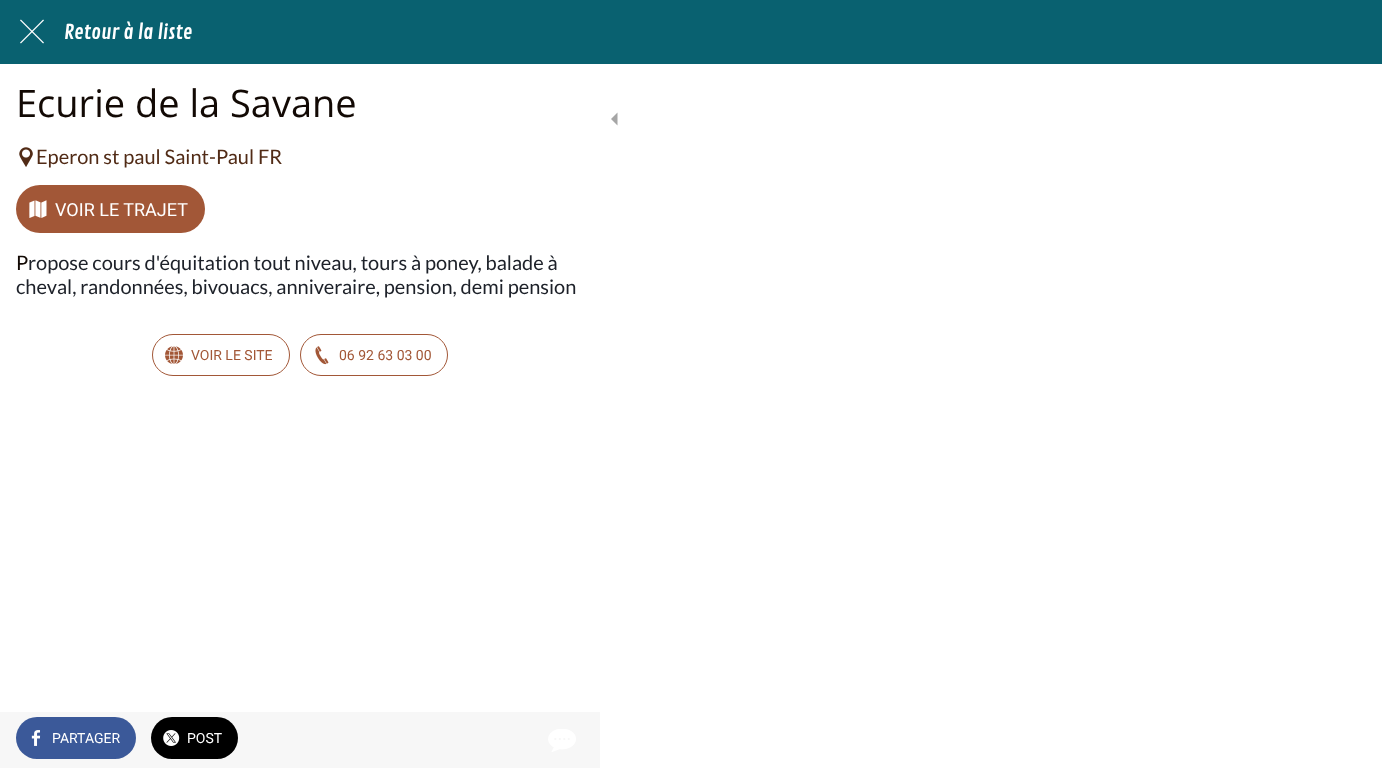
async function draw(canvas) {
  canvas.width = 1382
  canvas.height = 768
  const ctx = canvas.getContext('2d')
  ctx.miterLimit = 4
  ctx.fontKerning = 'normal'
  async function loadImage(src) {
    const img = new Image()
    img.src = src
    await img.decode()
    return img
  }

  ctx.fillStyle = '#fff'
  ctx.fillRect(0, 0, 1382, 768)
  ctx.fillStyle = '#096170'
  ctx.fillRect(0, 0, 1382, 64)
  ctx.drawImage(await loadImage('image0.png'), 20, 19, 24, 25)
  ctx.font = '20px Contrail One'
  ctx.fillStyle = '#fff'
  ctx.fillText('Retour à la liste', 64, 39)
  ctx.font = '38px Open Sans'
  ctx.fillStyle = '#120904'
  ctx.fillText('Ecurie de la Savane', 16, 117)
  ctx.drawImage(await loadImage('image1.png'), 19, 147, 14, 20)
  ctx.font = '20px Lato'
  ctx.fillStyle = '#512b16'
  ctx.fillText('Eperon st paul Saint-Paul FR', 36, 164)
  ctx.fillStyle = '#a25737'
  ctx.beginPath()
  ctx.roundRect(16, 185, 189, 48, 24)
  ctx.fill()
  ctx.drawImage(await loadImage('image2.png'), 29, 200, 18, 18)
  ctx.font = '18px Roboto'
  ctx.fillStyle = '#fff'
  ctx.fillText('VOIR LE TRAJET', 55, 216)
  ctx.font = '20px Lato'
  ctx.fillStyle = '#120904'
  ctx.fillText('P', 16, 270)
  ctx.fillStyle = '#1d2129'
  ctx.fillText('ropose cours d\'équitation tout niveau, tours à poney, balade à', 28, 270)
  ctx.fillText('cheval, randonnées, bivouacs, anniveraire, pension, demi pension', 16, 294)
  ctx.beginPath()
  ctx.roundRect(152.5, 334.5, 137, 41, 20.5)
  ctx.strokeStyle = '#a25737'
  ctx.stroke()
  ctx.drawImage(await loadImage('image3.png'), 165, 346, 18, 18)
  ctx.font = '14px Roboto'
  ctx.fillStyle = '#a25737'
  ctx.fillText('VOIR LE SITE', 191, 360)
  ctx.beginPath()
  ctx.roundRect(300.5, 334.5, 147, 41, 20.5)
  ctx.stroke()
  ctx.drawImage(await loadImage('image4.png'), 315, 346, 14, 19)
  ctx.fillText('06 92 63 03 00', 339, 360)
  ctx.fillStyle = '#f7f7f7'
  ctx.fillRect(0, 712, 600, 56)
  ctx.fillStyle = '#3b5999'
  ctx.beginPath()
  ctx.roundRect(16, 717, 120, 42, 21)
  ctx.fill()
  ctx.drawImage(await loadImage('image5.png'), 31, 730, 10, 16)
  ctx.fillStyle = '#fff'
  ctx.fillText('PARTAGER', 52, 743)
  ctx.fillStyle = '#000'
  ctx.beginPath()
  ctx.roundRect(151, 717, 87, 42, 21)
  ctx.fill()
  ctx.drawImage(await loadImage('image6.png'), 163, 730, 17, 16)
  ctx.fillStyle = '#fff'
  ctx.fillText('POST', 187, 743)
  ctx.drawImage(await loadImage('image7.png'), 548, 729, 28, 23)
  ctx.fillStyle = '#a6a6a6'
  ctx.beginPath()
  ctx.moveTo(617.5, 112.5)
  ctx.lineTo(611, 119)
  ctx.lineTo(617.5, 125.5)
  ctx.lineTo(617.5, 113)
  ctx.closePath()
  ctx.fill()
}

draw(document.querySelector('canvas'))
